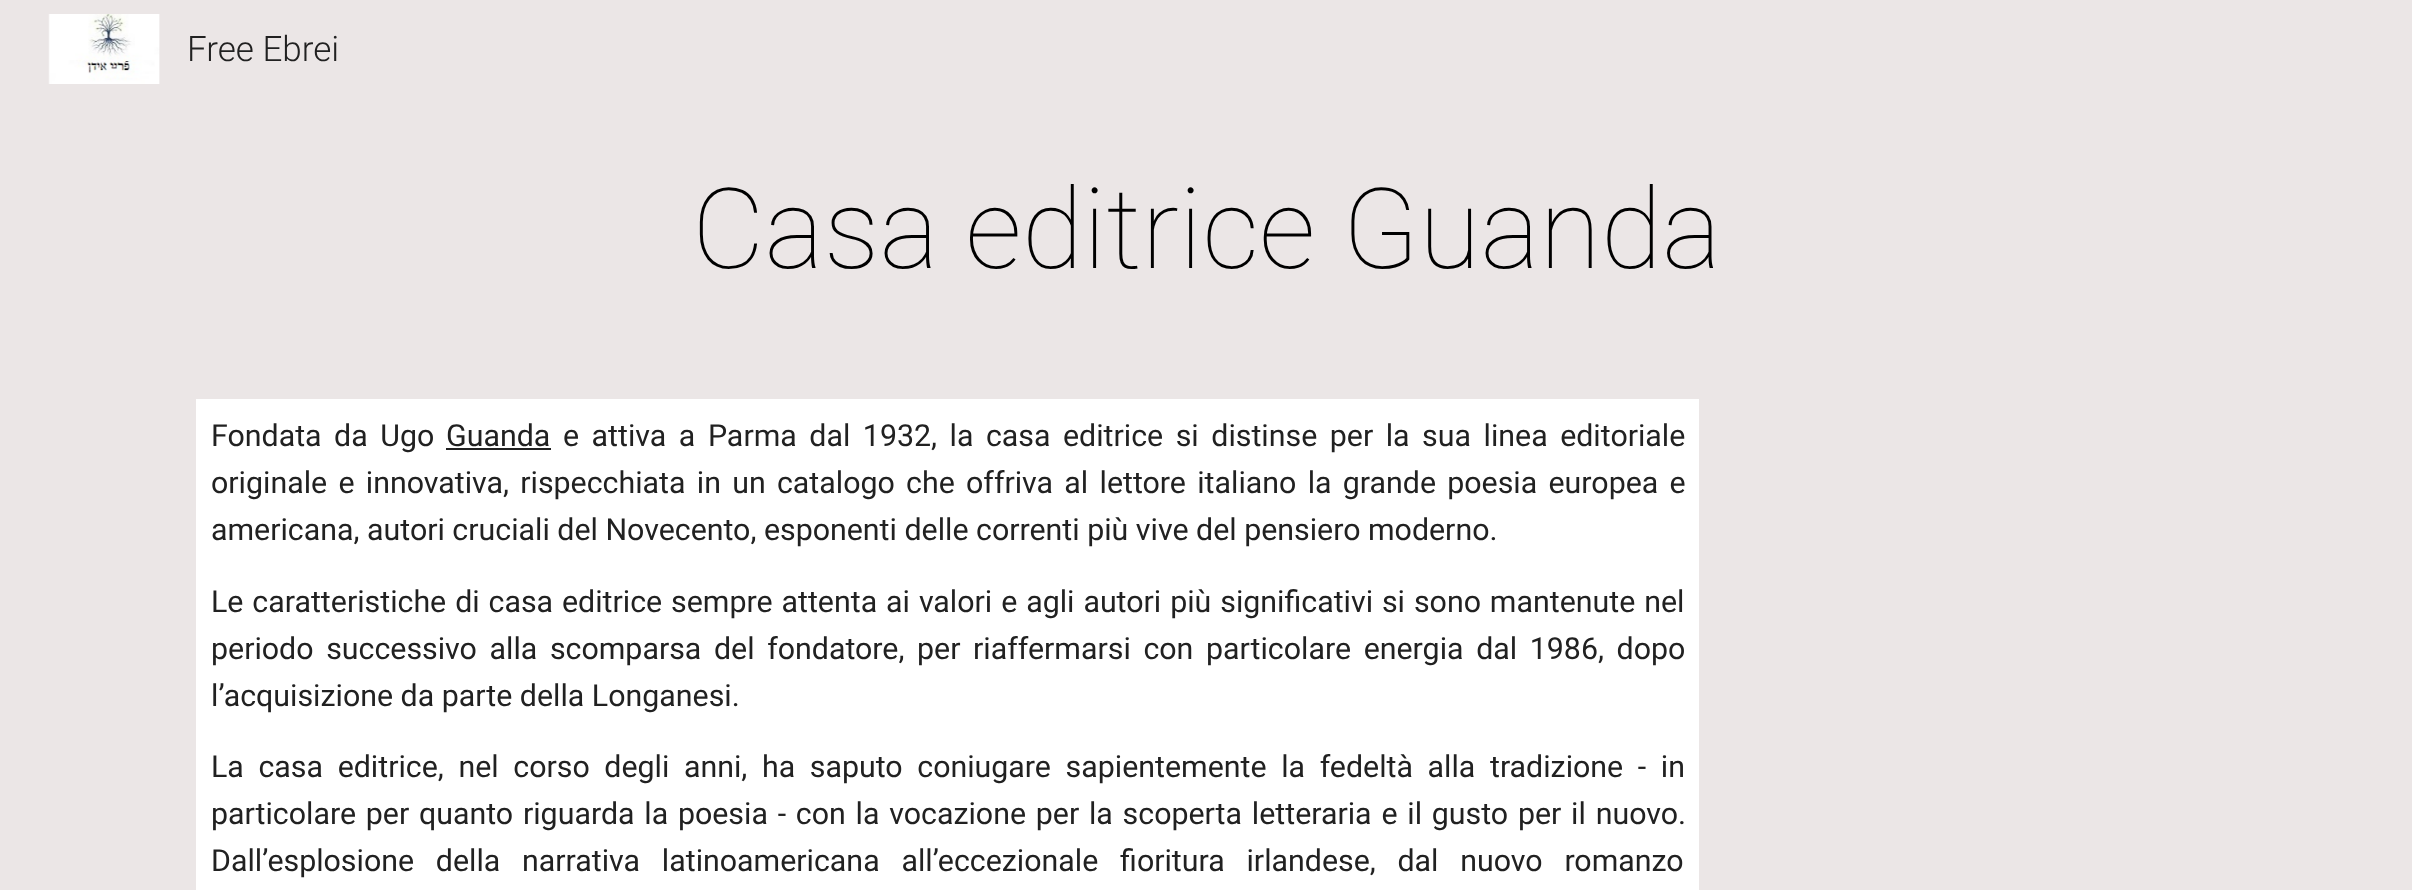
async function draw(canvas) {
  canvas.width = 2412
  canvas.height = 890
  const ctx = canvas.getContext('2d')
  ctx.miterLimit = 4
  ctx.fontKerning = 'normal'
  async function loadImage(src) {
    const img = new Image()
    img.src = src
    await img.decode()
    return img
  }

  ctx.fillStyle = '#ebe6e6'
  ctx.fillRect(0, 0, 2412, 890)
  ctx.drawImage(await loadImage('image0.png'), 48, 14, 112, 70)
  ctx.font = '300 35px Roboto'
  ctx.fillStyle = '#212121'
  ctx.fillText('Free Ebrei', 187, 61)
  ctx.font = '100 112px Roboto'
  ctx.fillStyle = '#000'
  ctx.fillText('Casa editrice Guanda', 692, 268)
  ctx.fillStyle = '#fff'
  ctx.fillRect(196, 399, 1503, 491)
  ctx.wordSpacing = '5px'
  ctx.font = '30.35px Roboto'
  ctx.fillStyle = '#212121'
  ctx.fillText('Fondata da Ugo', 211, 446)
  ctx.wordSpacing = '0px'
  ctx.fillText('Guanda', 446, 446)
  ctx.fillRect(446, 448, 105, 2)
  ctx.wordSpacing = '5px'
  ctx.fillText('e attiva a Parma dal 1932, la casa editrice si distinse per la sua linea editoriale', 563, 446)
  ctx.wordSpacing = '3.75px'
  ctx.fillText('originale e innovativa, rispecchiata in un catalogo che offriva al lettore italiano la grande poesia europea e', 211, 493)
  ctx.wordSpacing = '0px'
  ctx.fillText('americana, autori cruciali del Novecento, esponenti delle correnti più vive del pensiero moderno.', 211, 540)
  ctx.wordSpacing = '1.4px'
  ctx.fillText('Le caratteristiche di casa editrice sempre attenta ai valori e agli autori più significativi si sono mantenute nel', 211, 612)
  ctx.wordSpacing = '5.1px'
  ctx.fillText('periodo successivo alla scomparsa del fondatore, per riaffermarsi con particolare energia dal 1986, dopo', 211, 659)
  ctx.wordSpacing = '0px'
  ctx.fillText('l’acquisizione da parte della Longanesi.', 211, 706)
  ctx.wordSpacing = '7.1px'
  ctx.fillText('La casa editrice, nel corso degli anni, ha saputo coniugare sapientemente la fedeltà alla tradizione - in', 211, 777)
  ctx.wordSpacing = '2.25px'
  ctx.fillText('particolare per quanto riguarda la poesia - con la vocazione per la scoperta letteraria e il gusto per il nuovo.', 211, 824)
  ctx.wordSpacing = '14.25px'
  ctx.fillText('Dall’esplosione della narrativa latinoamericana all’eccezionale fioritura irlandese, dal nuovo romanzo', 211, 871)
}

draw(document.querySelector('canvas'))
